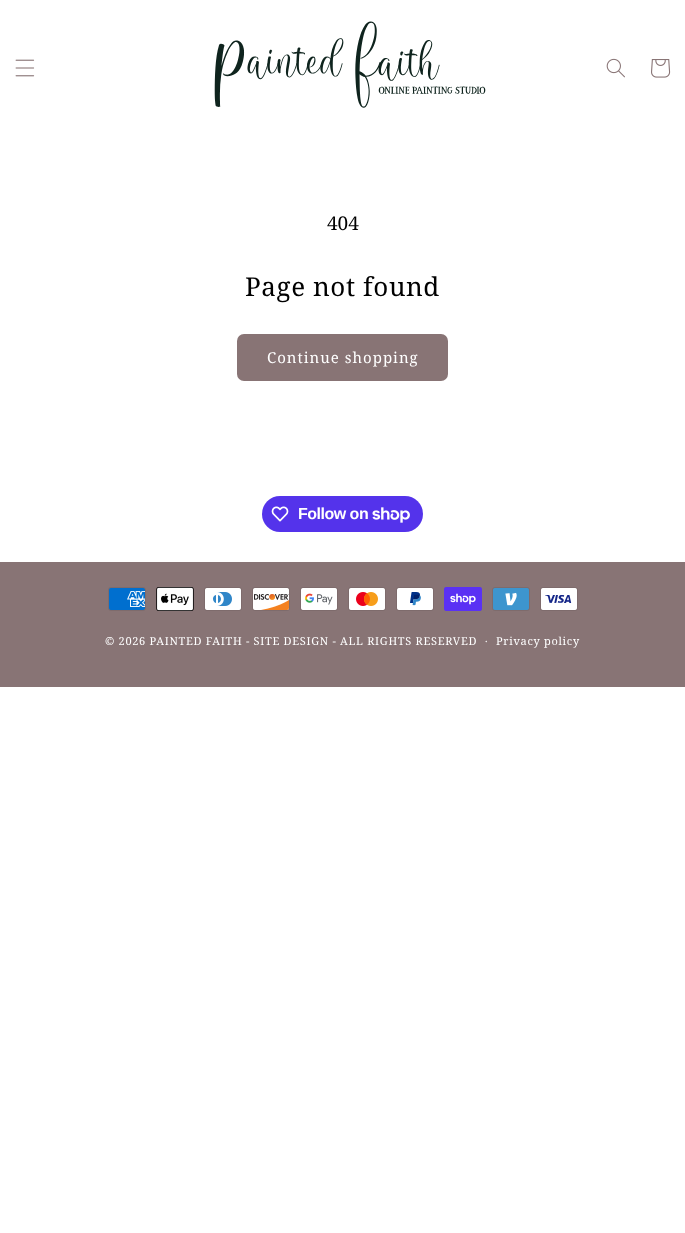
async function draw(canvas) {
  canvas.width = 685
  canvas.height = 1233
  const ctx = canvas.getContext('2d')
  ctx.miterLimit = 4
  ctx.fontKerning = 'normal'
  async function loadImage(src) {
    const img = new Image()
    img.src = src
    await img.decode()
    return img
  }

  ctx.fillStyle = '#fff'
  ctx.fillRect(0, 0, 685, 1233)
  ctx.drawImage(await loadImage('image0.png'), 15, 59, 20, 18)
  ctx.drawImage(await loadImage('image1.png'), 214, 21, 272, 87)
  ctx.drawImage(await loadImage('image2.png'), 606, 58, 19, 20)
  ctx.drawImage(await loadImage('image3.png'), 651, 59, 20, 19)
  ctx.font = '19px Noto Serif'
  ctx.fillStyle = '#000'
  ctx.fillText('404', 327, 230)
  ctx.letterSpacing = '0.6px'
  ctx.font = '26px Noto Serif'
  ctx.fillText('Page not found', 245, 296)
  ctx.fillStyle = '#887475'
  ctx.beginPath()
  ctx.roundRect(237, 334, 211, 47, 7)
  ctx.fill()
  ctx.letterSpacing = '1px'
  ctx.font = '15px Noto Serif'
  ctx.fillStyle = '#fff'
  ctx.fillText('Continue shopping', 267, 363)
  ctx.fillStyle = '#5433eb'
  ctx.beginPath()
  ctx.roundRect(262, 496, 161, 36, 18)
  ctx.fill()
  ctx.drawImage(await loadImage('image4.png'), 271, 506, 18, 16)
  ctx.letterSpacing = '-0.5px'
  ctx.font = 'bold 16px Liberation Sans'
  ctx.fillStyle = '#fff'
  ctx.fillText('Follow on', 298, 519)
  ctx.drawImage(await loadImage('image5.png'), 372, 507, 38, 16)
  ctx.fillStyle = '#887475'
  ctx.fillRect(0, 562, 685, 125)
  ctx.drawImage(await loadImage('image6.png'), 108, 587, 38, 24)
  ctx.drawImage(await loadImage('image7.png'), 156, 587, 38, 24)
  ctx.drawImage(await loadImage('image8.png'), 204, 587, 38, 24)
  ctx.drawImage(await loadImage('image9.png'), 252, 587, 38, 24)
  ctx.drawImage(await loadImage('image10.png'), 300, 587, 38, 24)
  ctx.drawImage(await loadImage('image11.png'), 348, 587, 38, 24)
  ctx.drawImage(await loadImage('image12.png'), 396, 587, 38, 24)
  ctx.drawImage(await loadImage('image13.png'), 444, 587, 38, 24)
  ctx.drawImage(await loadImage('image14.png'), 492, 587, 38, 24)
  ctx.drawImage(await loadImage('image15.png'), 540, 587, 38, 24)
  ctx.letterSpacing = '0.7px'
  ctx.font = '11px Noto Serif'
  ctx.fillStyle = '#fff'
  ctx.fillText('© 2026 PAINTED FAITH - SITE DESIGN - ALL RIGHTS RESERVED', 105, 645)
  ctx.font = '10px Noto Serif'
  ctx.fillText('·', 485, 645)
  ctx.font = '11px Noto Serif'
  ctx.fillText('Privacy policy', 496, 645)
}

draw(document.querySelector('canvas'))
